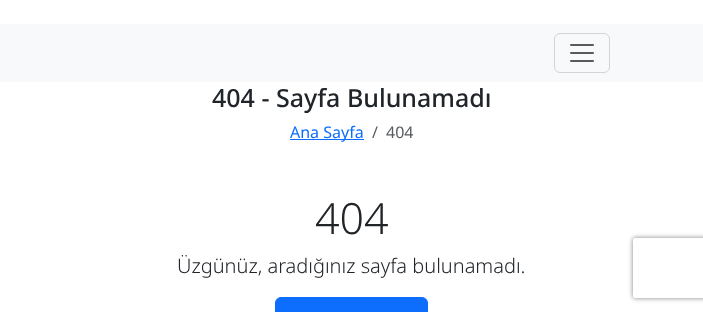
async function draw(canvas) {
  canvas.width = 703
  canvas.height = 312
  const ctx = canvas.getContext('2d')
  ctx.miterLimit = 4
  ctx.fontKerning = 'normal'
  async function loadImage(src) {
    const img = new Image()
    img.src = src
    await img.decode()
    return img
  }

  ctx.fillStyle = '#fff'
  ctx.fillRect(0, 0, 703, 312)
  ctx.fillStyle = '#f8f9fa'
  ctx.fillRect(0, 24, 703, 58)
  ctx.beginPath()
  ctx.roundRect(554.5, 33.5, 55, 39, 5.5)
  ctx.strokeStyle = '#d3d4d5'
  ctx.stroke()
  ctx.drawImage(await loadImage('image0.png'), 570, 44, 24, 18)
  ctx.font = '500 25px Noto Sans'
  ctx.fillStyle = '#212529'
  ctx.fillText('404 - Sayfa Bulunamadı', 212, 107)
  ctx.fillStyle = '#0d6efd'
  ctx.fillRect(290, 139, 74, 1)
  ctx.font = '16px Noto Sans'
  ctx.fillText('Ana Sayfa', 290, 138)
  ctx.fillStyle = '#595c5f'
  ctx.fillText('/', 372, 138)
  ctx.fillText('404', 386, 138)
  ctx.font = '300 43px Noto Sans'
  ctx.fillStyle = '#212529'
  ctx.fillText('404', 315, 234)
  ctx.font = '300 20px Noto Sans'
  ctx.fillText('Üzgünüz, aradığınız sayfa bulunamadı.', 177, 273)
  ctx.fillStyle = '#0d6efd'
  ctx.beginPath()
  ctx.roundRect(275.5, 297.5, 152, 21, 5.5)
  ctx.fill()
  ctx.strokeStyle = '#0d6efd'
  ctx.stroke()
  ctx.save()
  ctx.beginPath()
  ctx.moveTo(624, 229)
  ctx.lineTo(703, 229)
  ctx.lineTo(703, 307)
  ctx.lineTo(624, 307)
  ctx.closePath()
  ctx.moveTo(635, 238)
  ctx.lineTo(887, 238)
  ctx.bezierCurveTo(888, 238, 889, 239, 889, 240)
  ctx.lineTo(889, 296)
  ctx.bezierCurveTo(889, 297, 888, 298, 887, 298)
  ctx.lineTo(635, 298)
  ctx.bezierCurveTo(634, 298, 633, 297, 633, 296)
  ctx.lineTo(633, 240)
  ctx.bezierCurveTo(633, 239, 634, 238, 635, 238)
  ctx.closePath()
  ctx.clip('evenodd')
  ctx.fillStyle = '#808080'
  ctx.filter = 'blur(2.5px)'
  ctx.beginPath()
  ctx.roundRect(633, 238, 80, 60, 2)
  ctx.fill()
  ctx.filter = 'none'
  ctx.restore()
}

draw(document.querySelector('canvas'))
